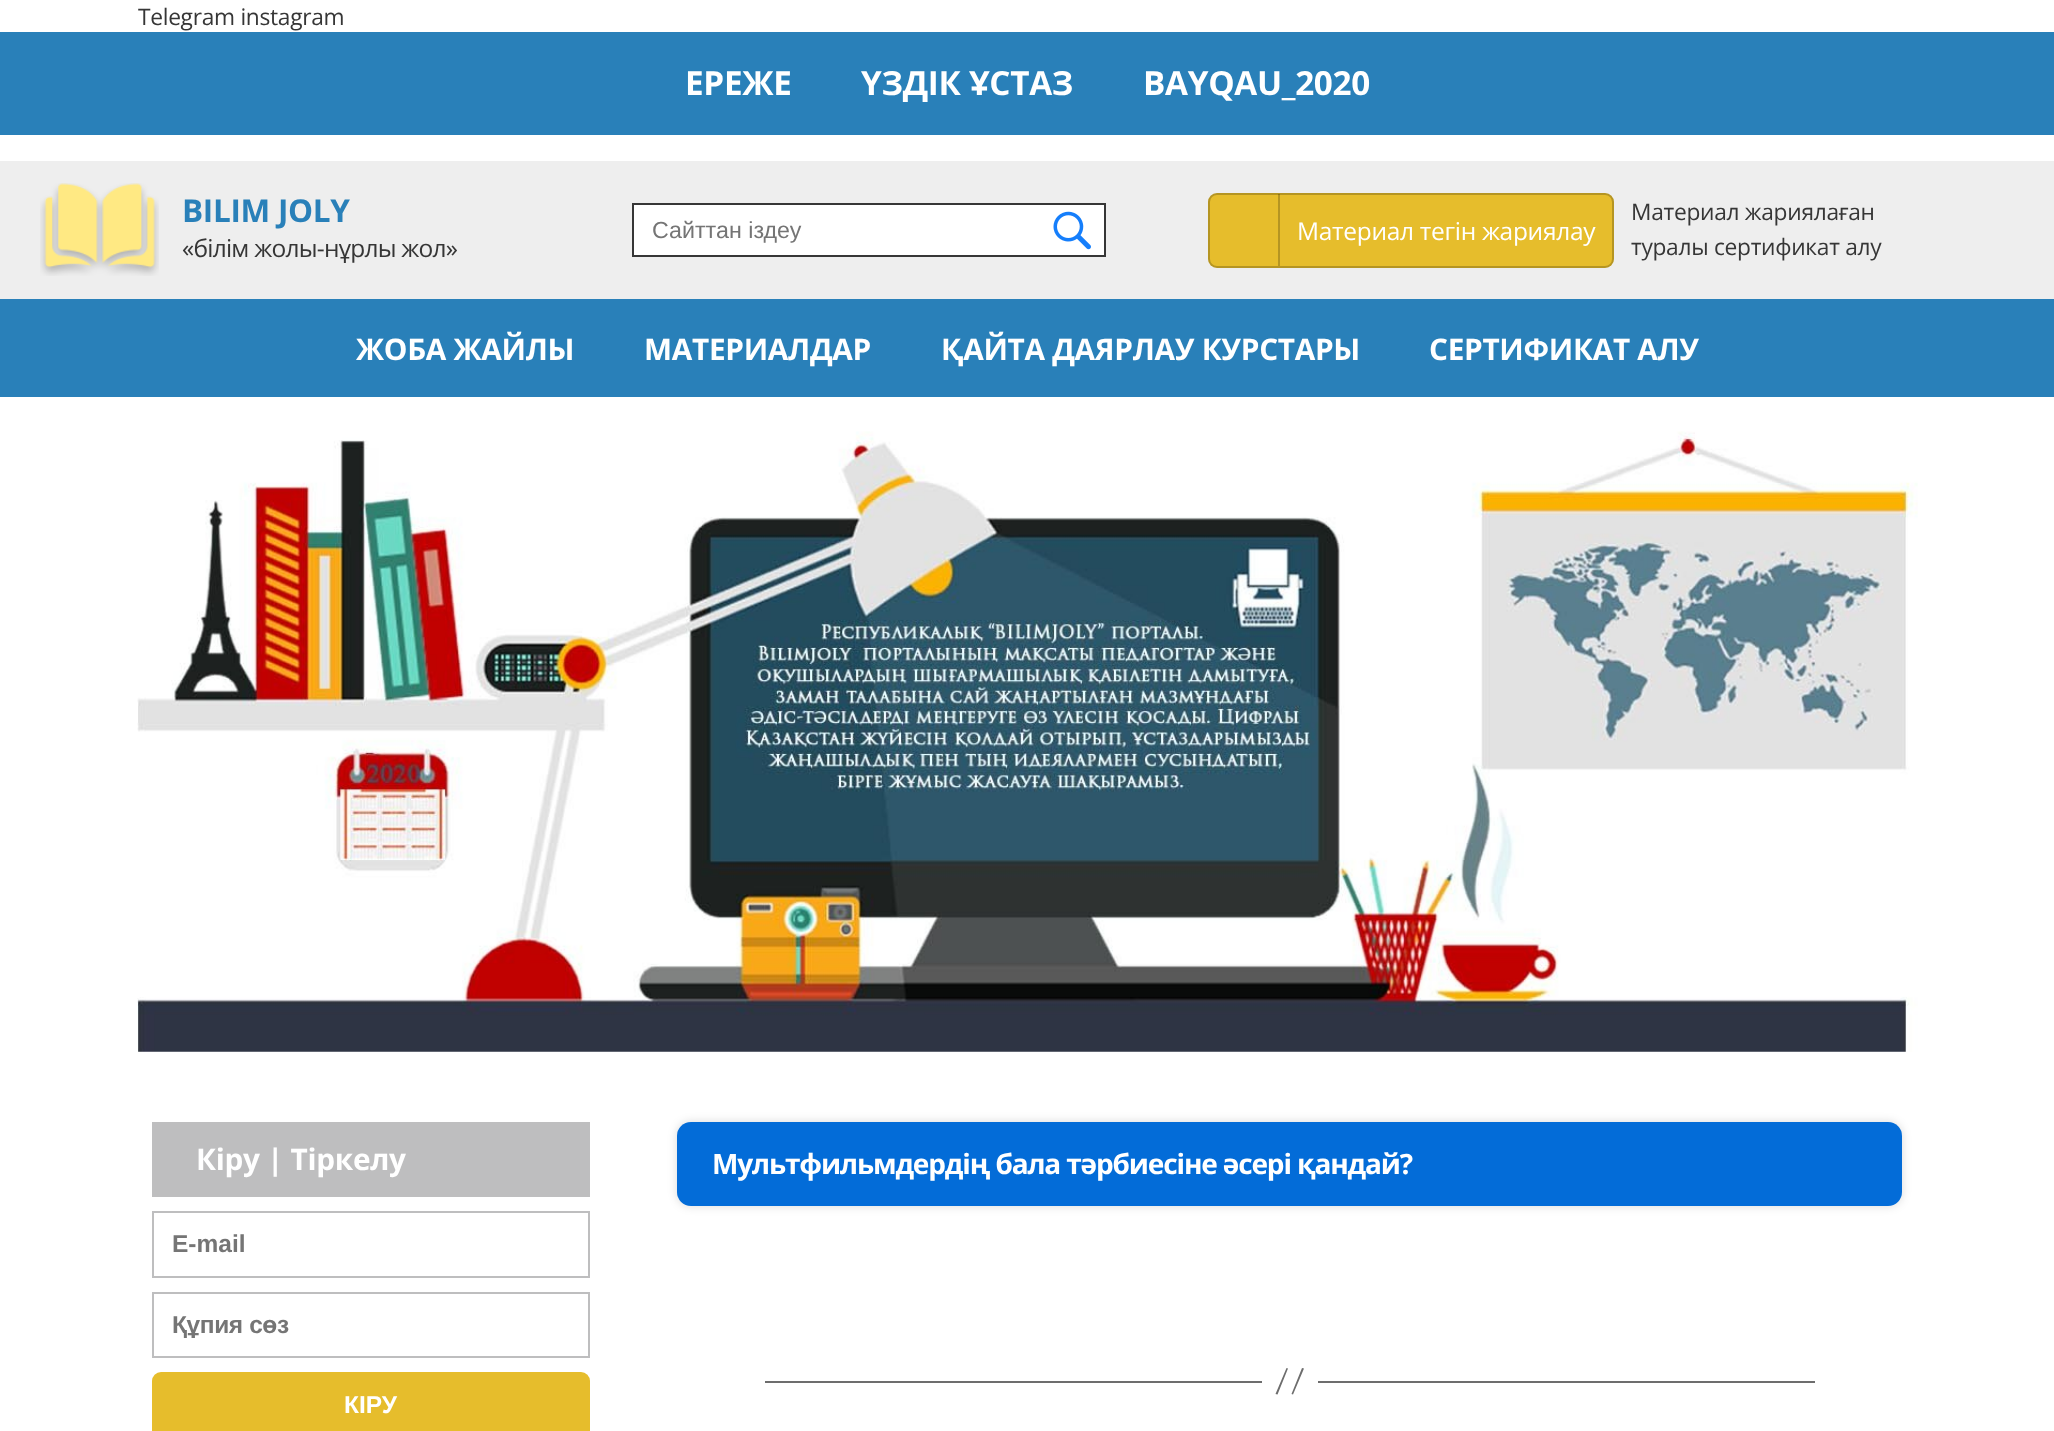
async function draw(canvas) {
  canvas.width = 2054
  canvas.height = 1431
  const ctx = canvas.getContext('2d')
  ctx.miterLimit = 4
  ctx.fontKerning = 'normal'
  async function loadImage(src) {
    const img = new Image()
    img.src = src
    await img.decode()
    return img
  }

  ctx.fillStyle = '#fff'
  ctx.fillRect(0, 0, 2054, 1431)
  ctx.letterSpacing = '-0.3px'
  ctx.font = '22.75px Open Sans'
  ctx.fillStyle = '#363636'
  ctx.fillText('Telegram instagram', 138, 25)
  ctx.fillStyle = '#2980b9'
  ctx.fillRect(0, 32, 2054, 103)
  ctx.font = 'bold 33.25px Open Sans'
  ctx.fillStyle = '#fff'
  ctx.fillText('ЕРЕЖЕ', 685, 95)
  ctx.fillText('ҮЗДІК ҰСТАЗ', 861, 95)
  ctx.fillText('BAYQAU_2020', 1143, 95)
  ctx.fillStyle = '#eee'
  ctx.fillRect(0, 161, 2054, 138)
  ctx.drawImage(await loadImage('image0.png'), 40, 183, 119, 93)
  ctx.font = 'bold 31.5px Open Sans'
  ctx.fillStyle = '#2980b9'
  ctx.fillText('BILIM JOLY', 182, 222)
  ctx.letterSpacing = '-0.75px'
  ctx.font = '24.5px Open Sans'
  ctx.fillStyle = '#363636'
  ctx.fillText('«білім жолы-нұрлы жол»', 182, 257)
  ctx.fillStyle = '#fff'
  ctx.beginPath()
  ctx.rect(633, 204, 472, 52)
  ctx.fill()
  ctx.strokeStyle = '#363636'
  ctx.lineWidth = 2
  ctx.stroke()
  ctx.letterSpacing = '0px'
  ctx.font = '23.25px Liberation Sans'
  ctx.fillStyle = '#757575'
  ctx.fillText('Сайттан іздеу', 652, 238)
  ctx.drawImage(await loadImage('image1.png'), 1053, 211, 38, 39)
  ctx.fillStyle = '#e6bd2c'
  ctx.beginPath()
  ctx.roundRect(1208, 193, 406, 75, 9)
  ctx.fill()
  ctx.beginPath()
  ctx.roundRect(1209, 194, 404, 73, 8)
  ctx.strokeStyle = '#00000036'
  ctx.stroke()
  ctx.fillStyle = '#00000036'
  ctx.fillRect(1278, 194, 2, 72)
  ctx.letterSpacing = '-0.3px'
  ctx.font = '24.5px Open Sans'
  ctx.fillStyle = '#fff'
  ctx.fillText('Материал тегін жариялау', 1297, 240)
  ctx.font = '22.75px Open Sans'
  ctx.fillStyle = '#363636'
  ctx.fillText('Материал жариялаған', 1631, 220)
  ctx.fillText('туралы сертификат алу', 1631, 255)
  ctx.fillStyle = '#2980b9'
  ctx.fillRect(0, 299, 2054, 98)
  ctx.font = 'bold 29.75px Open Sans'
  ctx.fillStyle = '#fff'
  ctx.fillText('ЖОБА ЖАЙЛЫ', 356, 360)
  ctx.fillText('МАТЕРИАЛДАР', 644, 360)
  ctx.fillText('ҚАЙТА ДАЯРЛАУ КУРСТАРЫ', 941, 360)
  ctx.fillText('СЕРТИФИКАТ АЛУ', 1429, 360)
  ctx.drawImage(await loadImage('image2.png'), 137, 431, 1781, 621)
  ctx.fillStyle = '#bebebf'
  ctx.fillRect(152, 1122, 438, 75)
  ctx.fillStyle = '#fff'
  ctx.fillText('Кіру | Тіркелу', 196, 1170)
  ctx.strokeStyle = '#bebebf'
  ctx.strokeRect(153, 1212, 436, 65)
  ctx.letterSpacing = '0px'
  ctx.font = 'bold 24.5px Liberation Sans'
  ctx.fillStyle = '#757575'
  ctx.fillText('E-mail', 172, 1252)
  ctx.strokeRect(153, 1293, 436, 64)
  ctx.letterSpacing = '-0.4px'
  ctx.fillText('Құпия сөз', 172, 1333)
  ctx.fillStyle = '#e6bd2c'
  ctx.beginPath()
  ctx.roundRect(152, 1372, 438, 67, 9)
  ctx.fill()
  ctx.letterSpacing = '0px'
  ctx.fillStyle = '#fff'
  ctx.fillText('КІРУ', 344, 1413)
  ctx.fillStyle = '#00000026'
  ctx.filter = 'blur(5px)'
  ctx.beginPath()
  ctx.roundRect(677, 1122, 1225, 84, 14)
  ctx.fill()
  ctx.filter = 'none'
  ctx.fillStyle = '#036cd8'
  ctx.beginPath()
  ctx.roundRect(677, 1122, 1225, 84, 14)
  ctx.fill()
  ctx.letterSpacing = '-1.15px'
  ctx.font = 'bold 28px Open Sans'
  ctx.fillStyle = '#fff'
  ctx.fillText('Мультфильмдердің бала тәрбиесіне әсері қандай?', 712, 1174)
  ctx.fillStyle = '#6d6d6d'
  ctx.fillRect(1318, 1381, 497, 2)
  ctx.fillRect(765, 1381, 497, 2)
  ctx.beginPath()
  ctx.moveTo(1286.5, 1368)
  ctx.lineTo(1288, 1368.5)
  ctx.lineTo(1277.5, 1394.5)
  ctx.lineTo(1275.5, 1394)
  ctx.closePath()
  ctx.moveTo(1302, 1368)
  ctx.lineTo(1304, 1368.5)
  ctx.lineTo(1293, 1394.5)
  ctx.lineTo(1291.5, 1394)
  ctx.closePath()
  ctx.fill()
}

draw(document.querySelector('canvas'))
